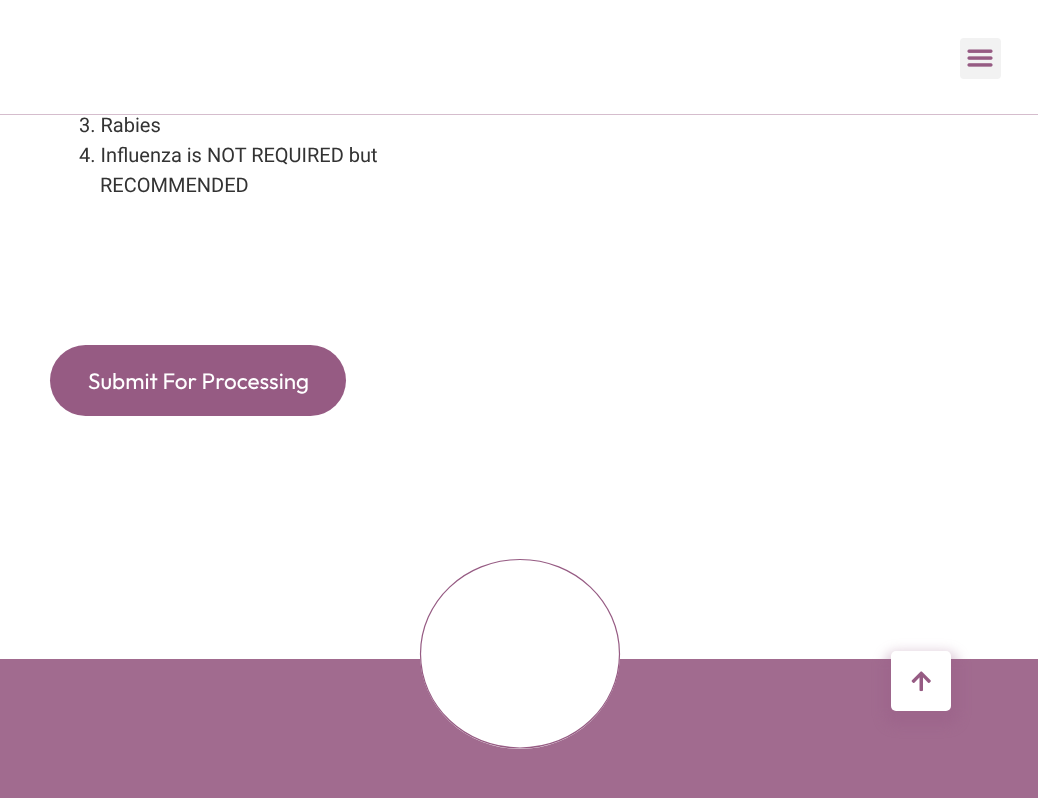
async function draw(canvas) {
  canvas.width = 1038
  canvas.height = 798
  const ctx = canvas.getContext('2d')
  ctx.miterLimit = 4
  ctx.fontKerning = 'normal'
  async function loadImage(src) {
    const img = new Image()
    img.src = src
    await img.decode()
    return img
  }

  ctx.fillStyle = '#fff'
  ctx.fillRect(0, 0, 1038, 798)
  ctx.fillStyle = '#d5bdcd'
  ctx.fillRect(0, 114, 1038, 1)
  ctx.fillStyle = '#f2f2f2'
  ctx.beginPath()
  ctx.roundRect(960, 38, 41, 41, 4)
  ctx.fill()
  ctx.drawImage(await loadImage('image0.png'), 967, 49, 26, 18)
  ctx.font = '20px Roboto'
  ctx.fillStyle = '#333'
  ctx.fillText('3. Rabies', 79, 132)
  ctx.fillText('4. Influenza is NOT REQUIRED but', 79, 162)
  ctx.fillText('RECOMMENDED', 100, 192)
  ctx.fillStyle = '#965b83'
  ctx.beginPath()
  ctx.roundRect(50, 345, 296, 71, 35.5)
  ctx.fill()
  ctx.font = '22.5px Outfit'
  ctx.fillStyle = '#fff'
  ctx.fillText('Submit For Processing', 88, 389)
  ctx.fillStyle = '#a16b8f'
  ctx.fillRect(0, 659, 1038, 139)
  ctx.fillStyle = '#fff'
  ctx.beginPath()
  ctx.ellipse(520, 654, 100, 95, 0, 0, 2 * Math.PI)
  ctx.fill()
  ctx.beginPath()
  ctx.moveTo(520, 559.5)
  ctx.bezierCurveTo(575, 559.5, 619.5, 601.5, 619.5, 654)
  ctx.bezierCurveTo(619.5, 706, 575, 748, 520, 748)
  ctx.bezierCurveTo(465, 748, 420.5, 706, 420.5, 654)
  ctx.bezierCurveTo(420.5, 601.5, 465, 559.5, 520, 559.5)
  ctx.closePath()
  ctx.strokeStyle = '#965b83'
  ctx.lineWidth = 1.2
  ctx.stroke()
  ctx.fillStyle = '#965b834d'
  ctx.filter = 'blur(6px)'
  ctx.beginPath()
  ctx.roundRect(884, 651, 75, 75, 13)
  ctx.fill()
  ctx.filter = 'none'
  ctx.fillStyle = '#fff'
  ctx.beginPath()
  ctx.roundRect(891, 651, 60, 60, 5)
  ctx.fill()
  ctx.drawImage(await loadImage('image1.png'), 911, 671, 20, 21)
}

draw(document.querySelector('canvas'))
